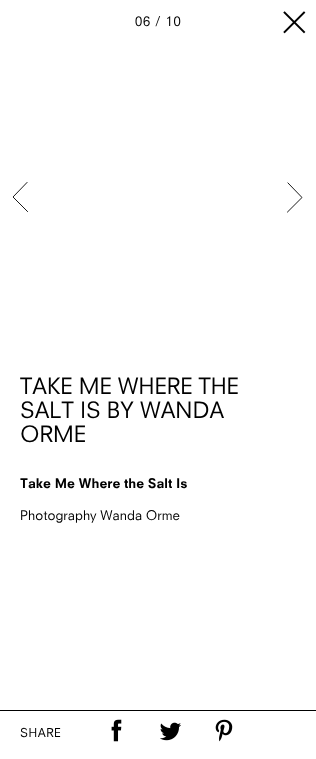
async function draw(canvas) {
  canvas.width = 316
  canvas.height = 759
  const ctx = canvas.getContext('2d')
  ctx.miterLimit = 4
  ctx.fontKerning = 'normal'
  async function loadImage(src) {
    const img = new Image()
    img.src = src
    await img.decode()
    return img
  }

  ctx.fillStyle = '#fff'
  ctx.fillRect(0, 0, 316, 759)
  ctx.letterSpacing = '0.75px'
  ctx.font = '13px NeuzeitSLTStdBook'
  ctx.fillStyle = '#000'
  ctx.fillText('06 / 10', 135, 26)
  ctx.beginPath()
  ctx.moveTo(27, 182.5)
  ctx.lineTo(13, 197)
  ctx.lineTo(27.5, 211.5)
  ctx.strokeStyle = '#000'
  ctx.lineWidth = 0.9
  ctx.lineCap = 'square'
  ctx.stroke()
  ctx.beginPath()
  ctx.moveTo(288, 183)
  ctx.lineTo(302, 197.5)
  ctx.lineTo(287.5, 212)
  ctx.stroke()
  ctx.drawImage(await loadImage('image0.png'), 283, 11, 23, 23)
  ctx.letterSpacing = '0px'
  ctx.font = '22px NeuzeitSLTStdBook'
  ctx.fillText('TAKE ME WHERE THE', 20, 394)
  ctx.fillText('SALT IS BY WANDA', 20, 418)
  ctx.fillText('ORME', 20, 442)
  ctx.font = '13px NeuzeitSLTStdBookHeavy'
  ctx.fillText('Take Me Where the Salt Is', 20, 488)
  ctx.font = '13px NeuzeitSLTStdBook'
  ctx.fillText('Photography Wanda Orme', 20, 520)
  ctx.fillRect(0, 710, 316, 1)
  ctx.letterSpacing = '0.5px'
  ctx.font = '12px NeuzeitSLTStdBook'
  ctx.fillText('SHARE', 20, 737)
  ctx.drawImage(await loadImage('image1.png'), 111, 719, 11, 23)
  ctx.drawImage(await loadImage('image2.png'), 160, 722, 21, 19)
  ctx.drawImage(await loadImage('image3.png'), 215, 719, 18, 23)
}

draw(document.querySelector('canvas'))
